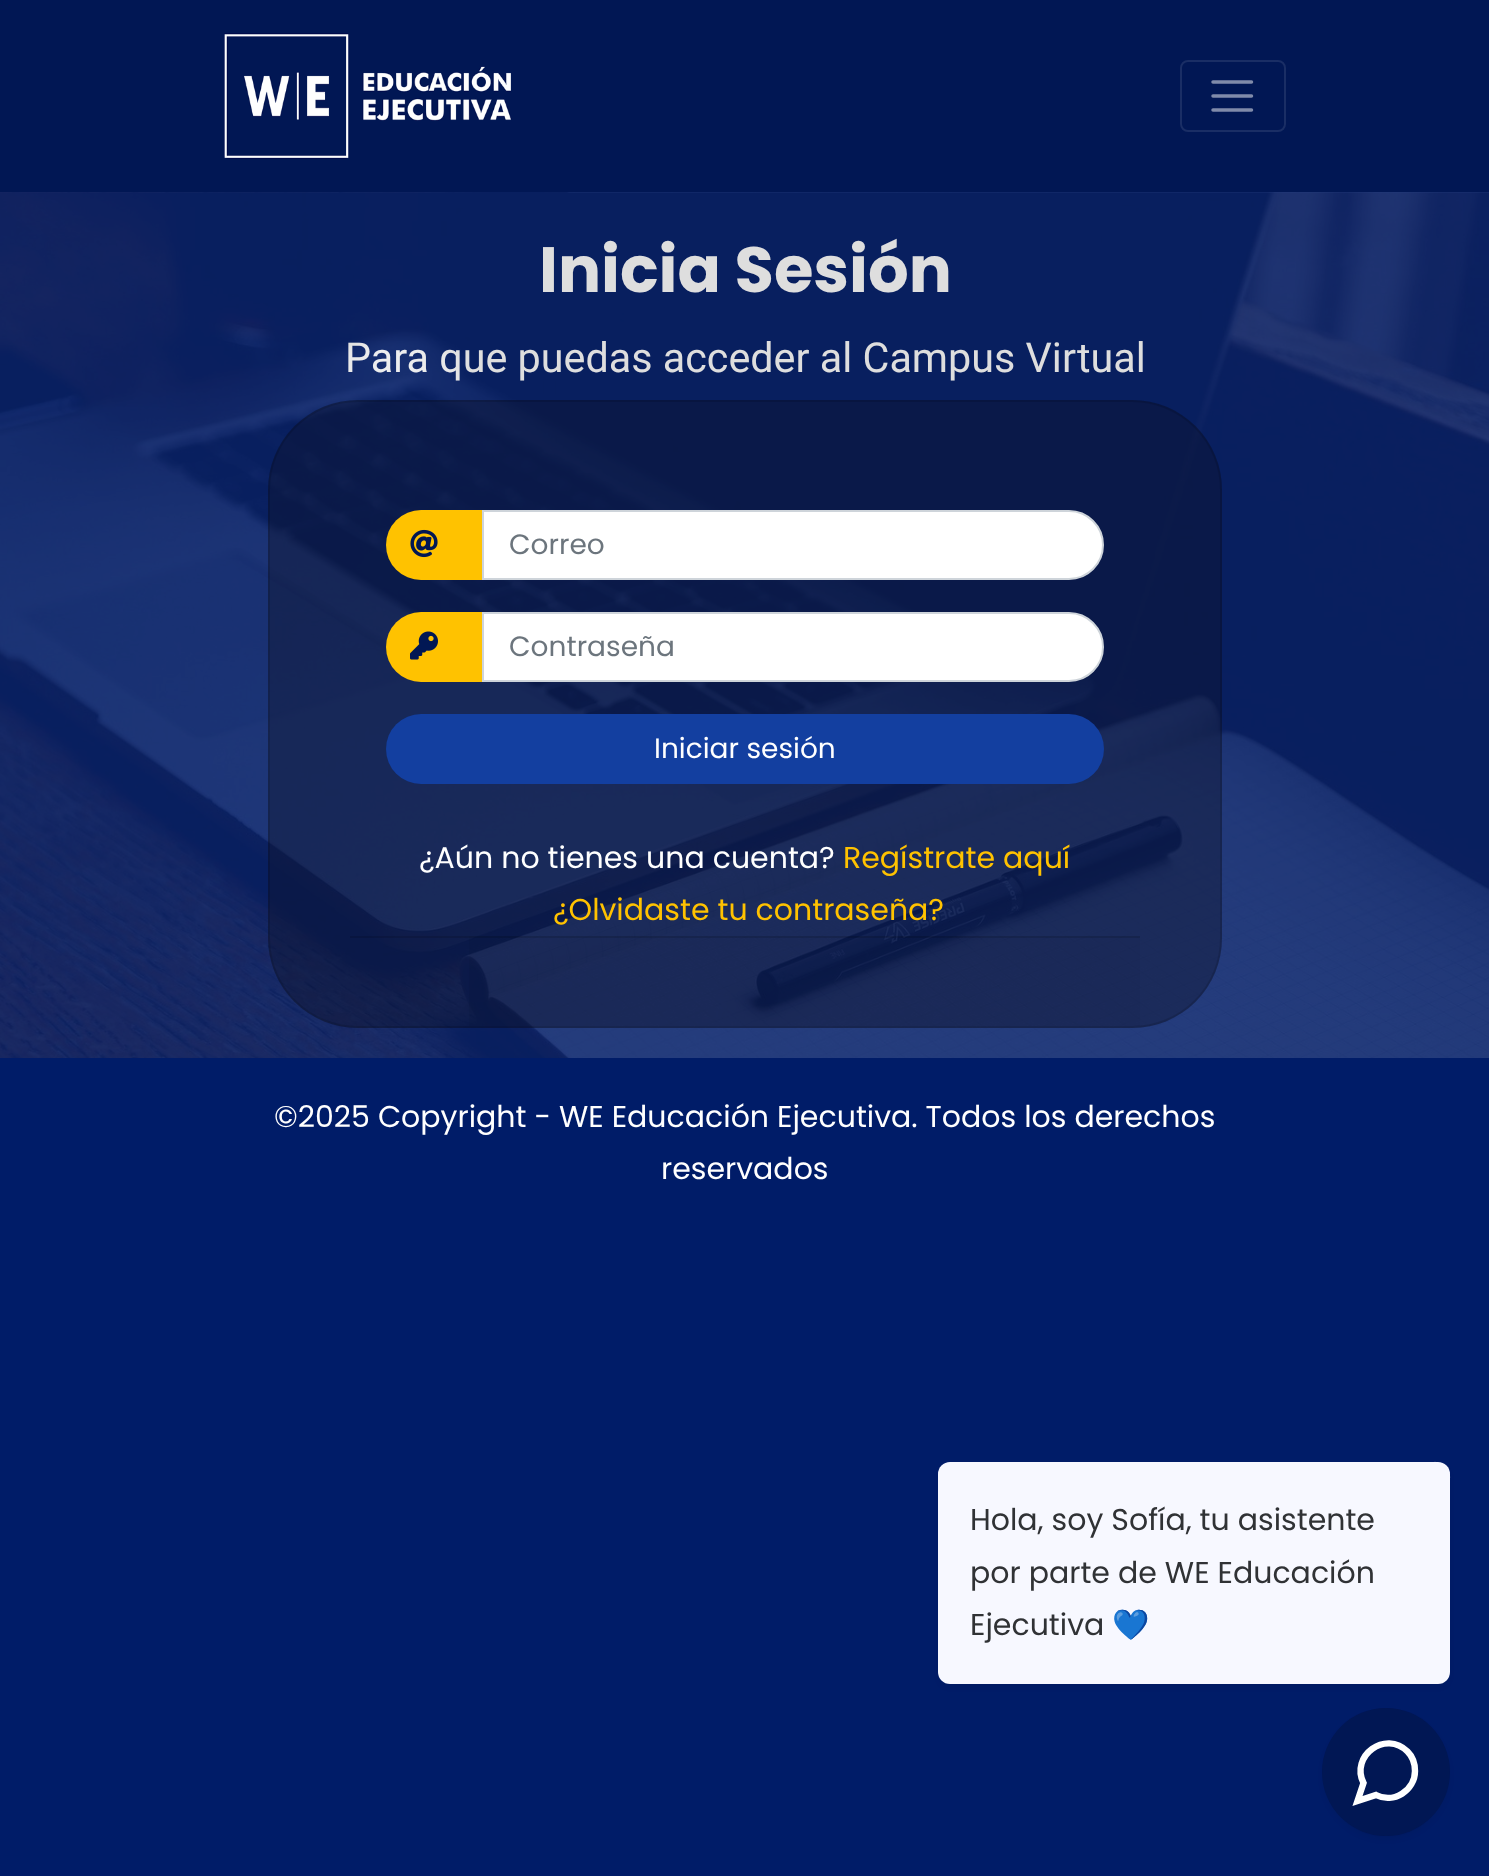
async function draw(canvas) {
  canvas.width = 1489
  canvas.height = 1876
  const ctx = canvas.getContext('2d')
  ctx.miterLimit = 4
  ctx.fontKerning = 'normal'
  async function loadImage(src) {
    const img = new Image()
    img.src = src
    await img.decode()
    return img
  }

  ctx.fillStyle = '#001c68'
  ctx.fillRect(0, 0, 1489, 1876)
  ctx.fillStyle = '#011754'
  ctx.fillRect(0, 0, 1489, 192)
  ctx.drawImage(await loadImage('image0.png'), 224, 33, 288, 126)
  ctx.beginPath()
  ctx.roundRect(1181, 61, 104, 70, 7)
  ctx.strokeStyle = '#1a2e65'
  ctx.lineWidth = 2
  ctx.stroke()
  ctx.beginPath()
  ctx.moveTo(1213, 82)
  ctx.lineTo(1251.5, 82)
  ctx.moveTo(1213, 96)
  ctx.lineTo(1251.5, 96)
  ctx.moveTo(1213, 110)
  ctx.lineTo(1251.5, 110)
  ctx.strokeStyle = '#808baa'
  ctx.lineWidth = 3.5
  ctx.lineCap = 'round'
  ctx.stroke()
  ctx.font = 'bold 64px Poppins'
  ctx.fillStyle = '#fff'
  ctx.fillText('Inicia Sesión', 539, 292)
  ctx.font = '41.3px Roboto'
  ctx.fillText('Para que puedas acceder al Campus Virtual', 345, 372)
  ctx.drawImage(await loadImage('image1.png'), 0, 192, 1489, 866)
  ctx.fillStyle = '#0d11245e'
  ctx.beginPath()
  ctx.roundRect(268, 400, 954, 628, 90)
  ctx.fill()
  ctx.beginPath()
  ctx.roundRect(269, 401, 952, 626, 89)
  ctx.strokeStyle = '#0000001f'
  ctx.lineWidth = 2
  ctx.stroke()
  ctx.fillStyle = '#ffc200'
  ctx.beginPath()
  ctx.roundRect(386, 510, 100, 70, [35, 0, 0, 35])
  ctx.fill()
  ctx.drawImage(await loadImage('image2.png'), 410, 529, 28, 29)
  ctx.fillStyle = '#fff'
  ctx.beginPath()
  ctx.roundRect(483, 511, 620, 68, [0, 34, 34, 0])
  ctx.fill()
  ctx.strokeStyle = '#ced4da'
  ctx.stroke()
  ctx.font = '28px Poppins'
  ctx.fillStyle = '#6c757d'
  ctx.fillText('Correo', 509, 554)
  ctx.fillStyle = '#ffc200'
  ctx.beginPath()
  ctx.roundRect(386, 612, 100, 70, [35, 0, 0, 35])
  ctx.fill()
  ctx.drawImage(await loadImage('image3.png'), 410, 631, 28, 29)
  ctx.fillStyle = '#fff'
  ctx.beginPath()
  ctx.roundRect(483, 613, 620, 68, [0, 34, 34, 0])
  ctx.fill()
  ctx.stroke()
  ctx.fillStyle = '#6c757d'
  ctx.fillText('Contraseña', 509, 656)
  ctx.fillStyle = '#133fa0'
  ctx.beginPath()
  ctx.roundRect(386, 714, 718, 70, 35)
  ctx.fill()
  ctx.fillStyle = '#fff'
  ctx.fillText('Iniciar sesión', 654, 758)
  ctx.font = '30px Poppins'
  ctx.fillText('¿Aún no tienes una cuenta?', 419, 868)
  ctx.fillStyle = '#ffc200'
  ctx.fillText('Regístrate aquí', 843, 868)
  ctx.fillText('¿Olvidaste tu contraseña?', 553, 920)
  ctx.fillStyle = '#00000008'
  ctx.fillRect(469, 936, 671, 90)
  ctx.fillStyle = '#0000001f'
  ctx.fillRect(350, 936, 790, 2)
  ctx.fillStyle = '#fff'
  ctx.fillText('©2025 Copyright - WE Educación Ejecutiva. Todos los derechos', 274, 1127)
  ctx.fillText('reservados', 661, 1179)
  ctx.fillStyle = '#0000001a'
  ctx.filter = 'blur(4px)'
  ctx.beginPath()
  ctx.roundRect(942, 1470, 504, 214, 8)
  ctx.fill()
  ctx.filter = 'none'
  ctx.fillStyle = '#f7f8ff'
  ctx.beginPath()
  ctx.roundRect(938, 1462, 512, 222, 12)
  ctx.fill()
  ctx.beginPath()
  ctx.moveTo(1435, 1463)
  ctx.lineTo(1449, 1477)
  ctx.strokeStyle = '#f7f8ff'
  ctx.lineWidth = 2.3
  ctx.lineJoin = 'round'
  ctx.stroke()
  ctx.fillStyle = '#303235'
  ctx.fillText('Hola, soy Sofía, tu asistente', 970, 1530)
  ctx.fillText('por parte de WE Educación', 970, 1583)
  ctx.fillText('Ejecutiva', 970, 1635)
  ctx.font = '30px Noto Color Emoji'
  ctx.fillText('💙', 1112, 1635)
  ctx.fillStyle = '#0000001a'
  ctx.filter = 'blur(4px)'
  ctx.beginPath()
  ctx.roundRect(1326, 1716, 120, 120, 60)
  ctx.fill()
  ctx.filter = 'none'
  ctx.fillStyle = '#011754'
  ctx.beginPath()
  ctx.arc(1386, 1772, 64, 0, 2 * Math.PI)
  ctx.fill()
  ctx.beginPath()
  ctx.moveTo(1415, 1771)
  ctx.bezierCurveTo(1415, 1790.5, 1393.5, 1804, 1376, 1795)
  ctx.lineTo(1357.5, 1801)
  ctx.lineTo(1363.5, 1783)
  ctx.bezierCurveTo(1350, 1756, 1385.5, 1729.5, 1407.5, 1751.5)
  ctx.bezierCurveTo(1412.5, 1756.5, 1415, 1763.5, 1415, 1771)
  ctx.closePath()
  ctx.strokeStyle = '#fff'
  ctx.lineWidth = 6.4
  ctx.lineCap = 'butt'
  ctx.lineJoin = 'miter'
  ctx.stroke()
}

draw(document.querySelector('canvas'))
